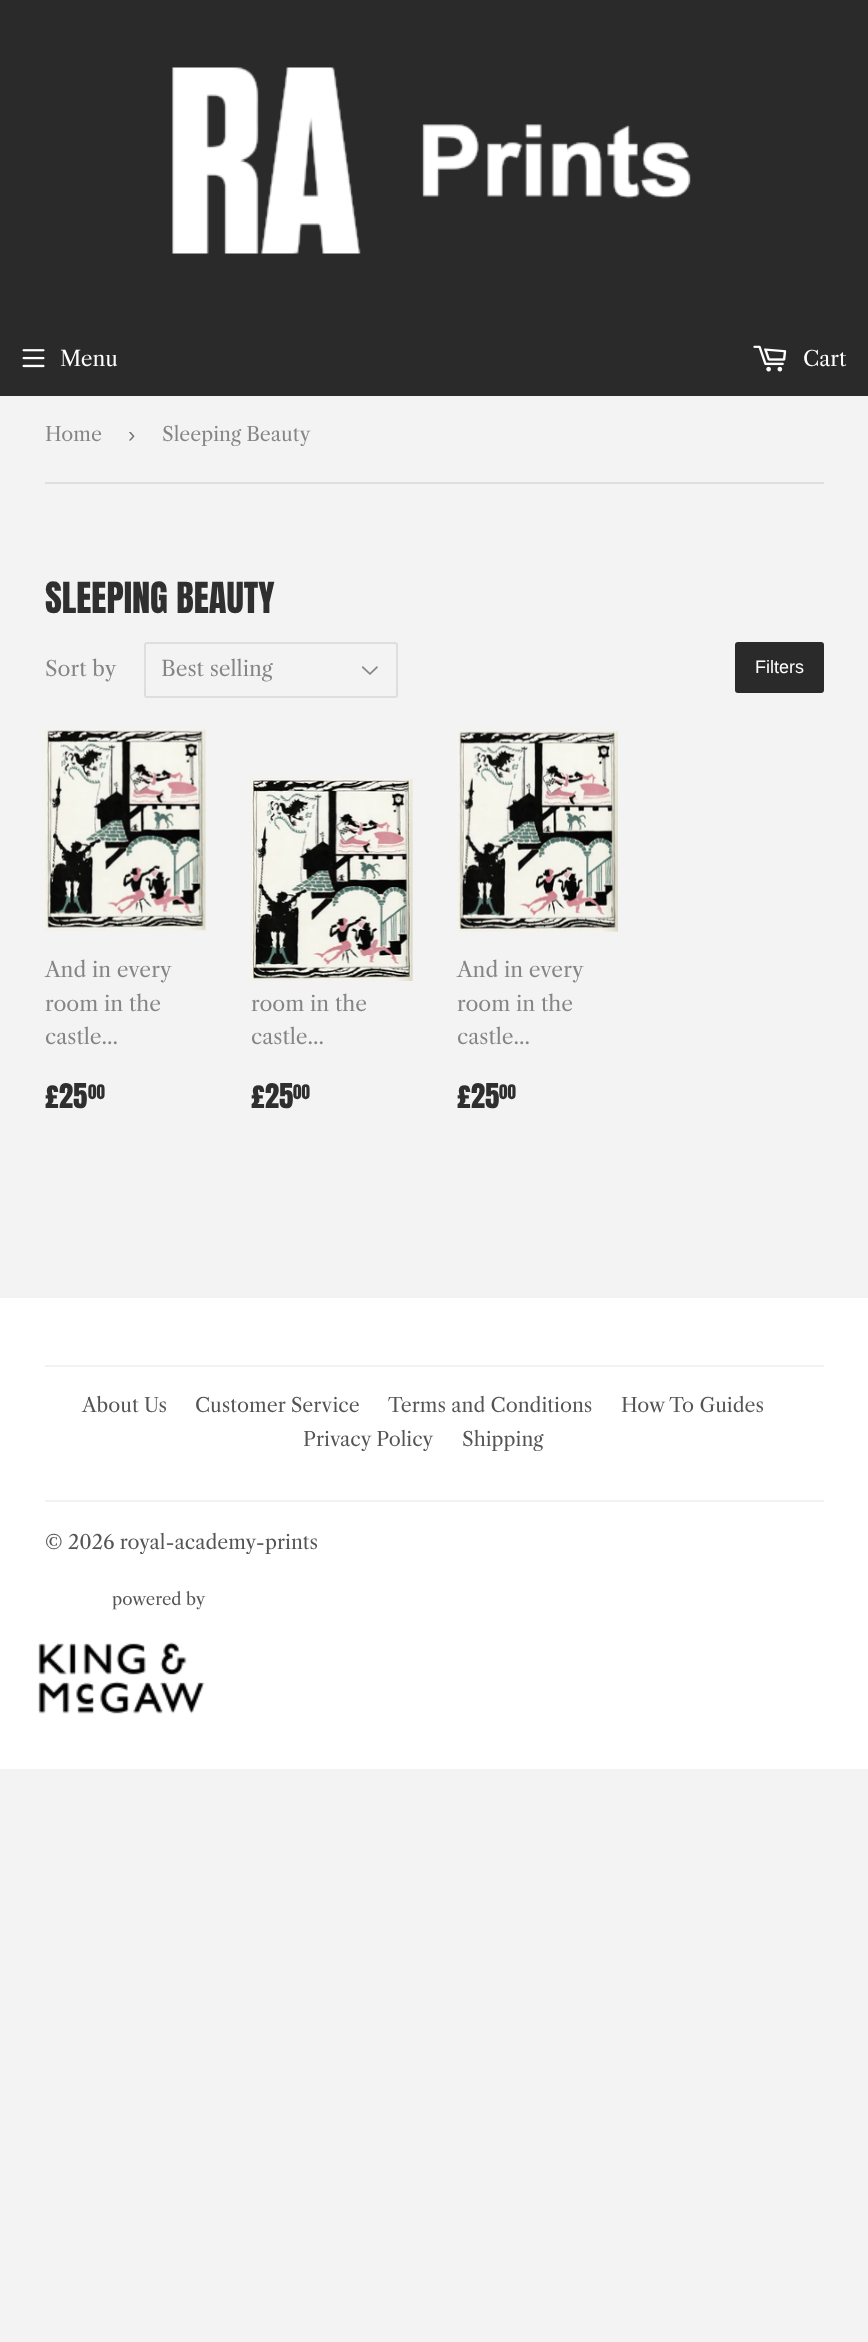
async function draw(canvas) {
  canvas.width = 868
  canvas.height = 2342
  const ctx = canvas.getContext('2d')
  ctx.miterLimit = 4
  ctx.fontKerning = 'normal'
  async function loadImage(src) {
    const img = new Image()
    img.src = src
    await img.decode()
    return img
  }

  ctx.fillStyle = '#f3f3f3'
  ctx.fillRect(0, 0, 868, 2342)
  ctx.fillStyle = '#2a2a2a'
  ctx.fillRect(0, 0, 868, 396)
  ctx.drawImage(await loadImage('image0.png'), 172, 67, 519, 187)
  ctx.drawImage(await loadImage('image1.png'), 22, 349, 23, 19)
  ctx.font = '21px Libre Caslon Text'
  ctx.fillStyle = '#fff'
  ctx.fillText('Menu', 60, 366)
  ctx.drawImage(await loadImage('image2.png'), 753, 345, 34, 27)
  ctx.fillText('Cart', 803, 366)
  ctx.fillStyle = '#dedede'
  ctx.fillRect(45, 482, 779, 2)
  ctx.font = '19.5px Libre Caslon Text'
  ctx.fillStyle = '#858585'
  ctx.fillText('Home', 45, 441)
  ctx.font = '22px Liberation Sans'
  ctx.fillStyle = '#767676'
  ctx.fillText('›', 128, 442)
  ctx.font = '19.5px Libre Caslon Text'
  ctx.fillStyle = '#858585'
  ctx.fillText('Sleeping Beauty', 162, 441)
  ctx.font = '36.5px Anton'
  ctx.fillStyle = '#2f2f2f'
  ctx.fillText('SLEEPING BEAUTY', 45, 613)
  ctx.font = '21px Libre Caslon Text'
  ctx.fillStyle = '#858585'
  ctx.fillText('Sort by', 45, 676)
  ctx.drawImage(await loadImage('image3.png'), 361, 666, 17, 9)
  ctx.beginPath()
  ctx.roundRect(145, 643, 252, 54, 2)
  ctx.strokeStyle = '#dedede'
  ctx.lineWidth = 2
  ctx.stroke()
  ctx.fillText('Best selling', 161, 676)
  ctx.fillStyle = '#2a2a2a'
  ctx.beginPath()
  ctx.roundRect(735, 642, 89, 51, 3)
  ctx.fill()
  ctx.font = '18px Liberation Sans'
  ctx.fillStyle = '#fff'
  ctx.fillText('Filters', 755, 673)
  ctx.drawImage(await loadImage('image4.png'), 45, 729, 161, 202)
  ctx.font = '21px Libre Caslon Text'
  ctx.fillStyle = '#858585'
  ctx.fillText('And in every', 45, 977)
  ctx.fillText('room in the', 45, 1011)
  ctx.fillText('castle...', 45, 1044)
  ctx.font = '29px Anton'
  ctx.fillStyle = '#2f2f2f'
  ctx.fillText('£25', 45, 1108)
  ctx.font = '17px Anton'
  ctx.fillText('00', 88, 1099)
  ctx.drawImage(await loadImage('image5.png'), 250, 778, 163, 203)
  ctx.font = '21px Libre Caslon Text'
  ctx.fillStyle = '#858585'
  ctx.fillText('room in the', 251, 1011)
  ctx.fillText('castle...', 251, 1044)
  ctx.font = '29px Anton'
  ctx.fillStyle = '#2f2f2f'
  ctx.fillText('£25', 251, 1108)
  ctx.font = '17px Anton'
  ctx.fillText('00', 293, 1099)
  ctx.drawImage(await loadImage('image6.png'), 457, 730, 161, 202)
  ctx.font = '21px Libre Caslon Text'
  ctx.fillStyle = '#858585'
  ctx.fillText('And in every', 457, 977)
  ctx.fillText('room in the', 457, 1011)
  ctx.fillText('castle...', 457, 1044)
  ctx.font = '29px Anton'
  ctx.fillStyle = '#2f2f2f'
  ctx.fillText('£25', 457, 1108)
  ctx.font = '17px Anton'
  ctx.fillText('00', 499, 1099)
  ctx.fillStyle = '#fff'
  ctx.fillRect(0, 1298, 868, 471)
  ctx.fillStyle = '#f2f2f2'
  ctx.fillRect(45, 1365, 779, 2)
  ctx.font = '19.5px Libre Caslon Text'
  ctx.fillStyle = '#545454'
  ctx.fillText('About Us', 82, 1412)
  ctx.fillText('Customer Service', 195, 1412)
  ctx.fillText('Terms and Conditions', 388, 1412)
  ctx.fillText('How To Guides', 621, 1412)
  ctx.fillText('Privacy Policy', 303, 1446)
  ctx.fillText('Shipping', 462, 1446)
  ctx.fillStyle = '#f2f2f2'
  ctx.fillRect(45, 1500, 779, 2)
  ctx.fillStyle = '#545454'
  ctx.fillText('© 2026 royal-academy-prints', 45, 1549)
  ctx.font = '16.75px Libre Caslon Text'
  ctx.fillText('powered by', 112, 1605)
  ctx.drawImage(await loadImage('image7.png'), 38, 1642, 167, 72)
}

draw(document.querySelector('canvas'))
